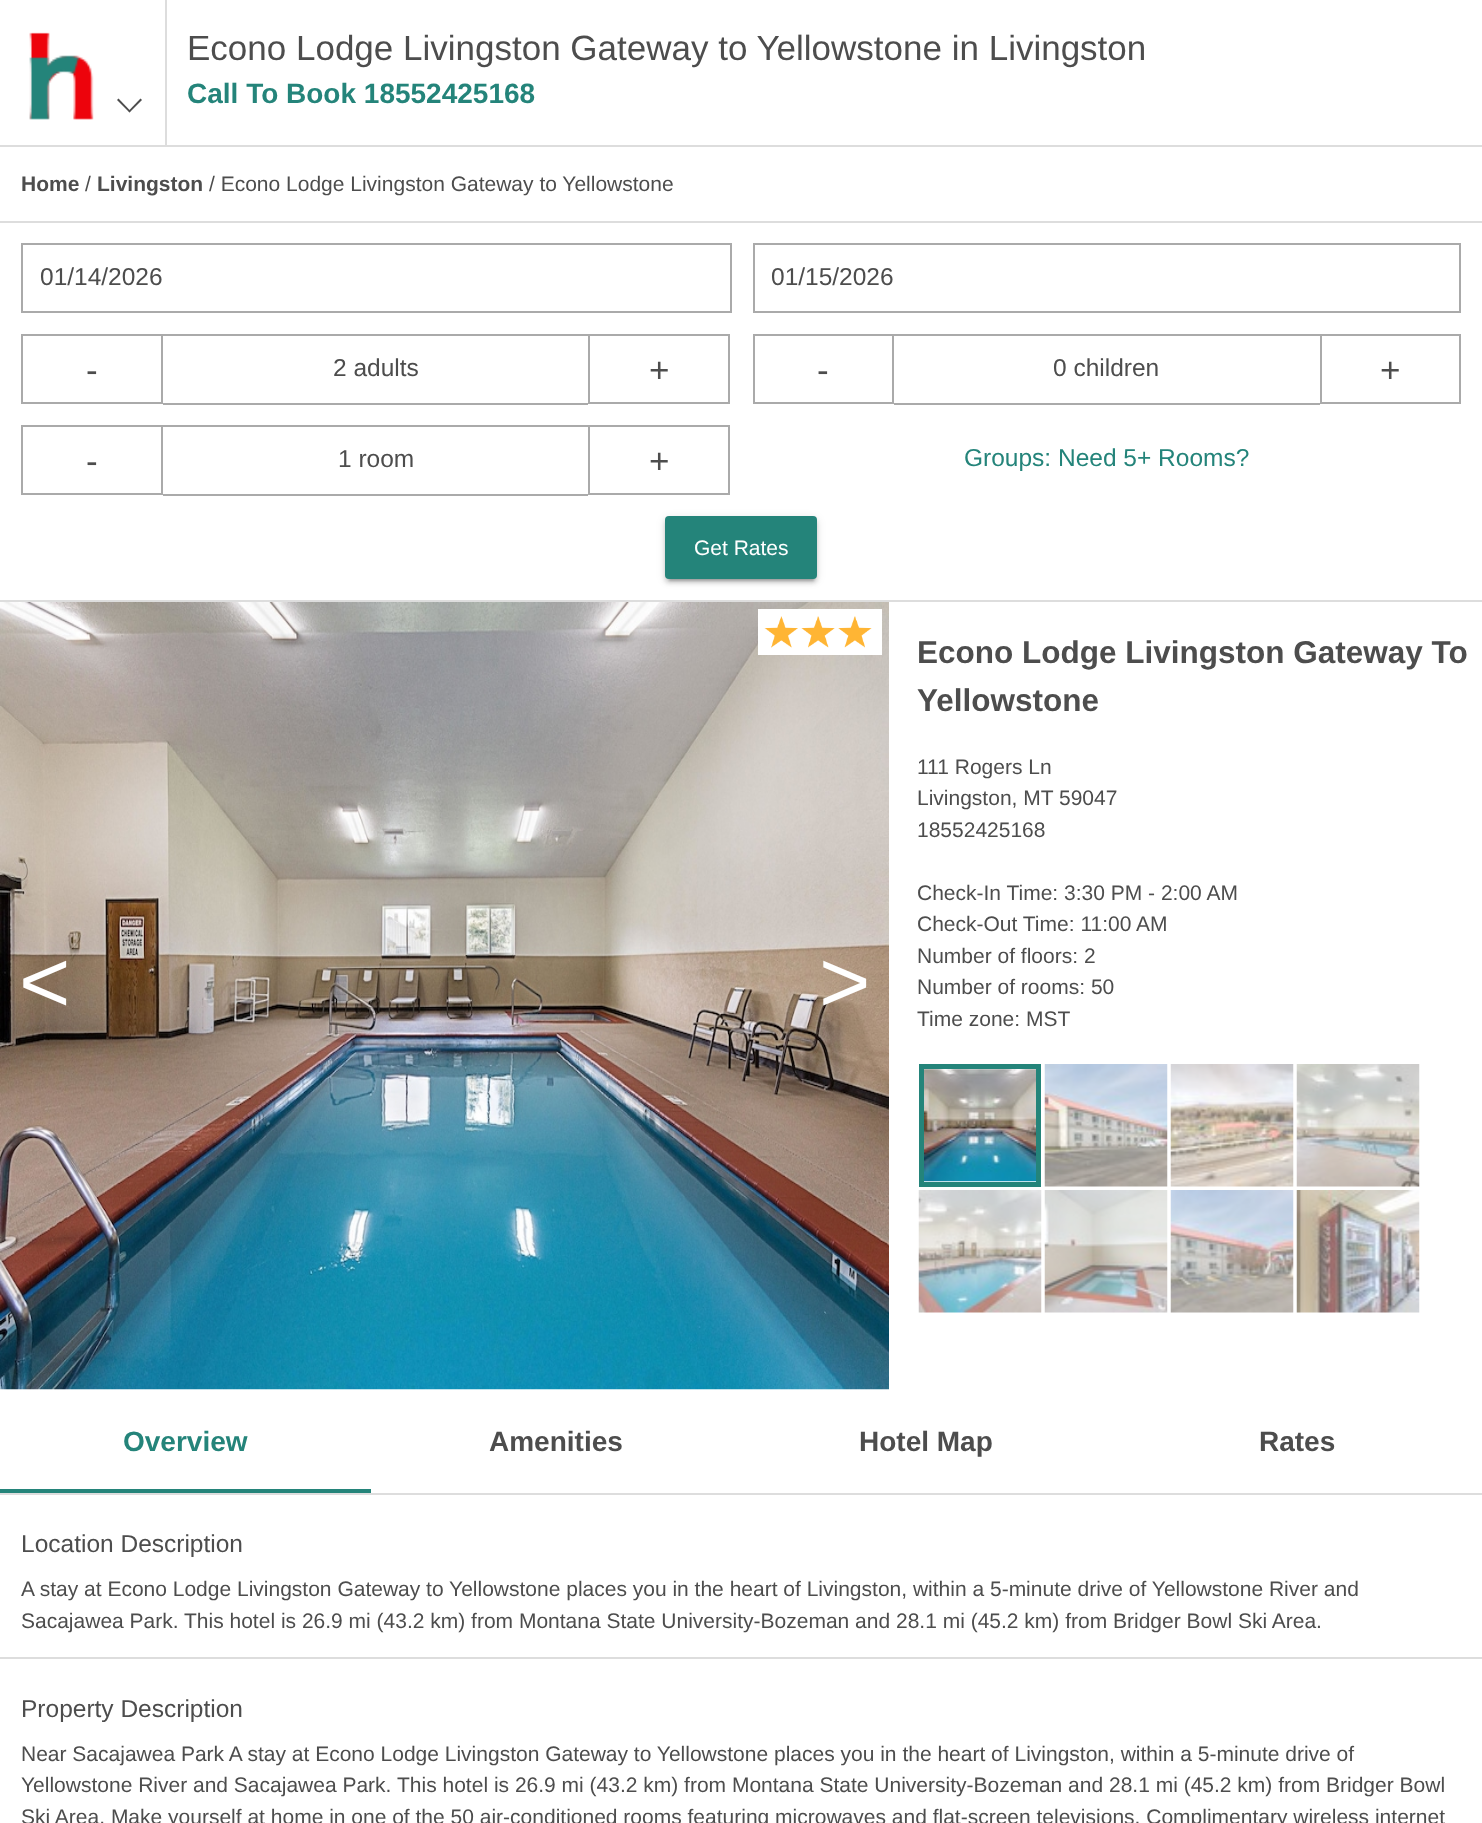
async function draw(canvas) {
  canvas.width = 1482
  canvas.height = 1823
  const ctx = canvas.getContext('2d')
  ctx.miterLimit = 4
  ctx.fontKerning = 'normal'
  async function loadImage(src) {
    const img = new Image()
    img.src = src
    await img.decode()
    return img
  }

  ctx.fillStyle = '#fff'
  ctx.fillRect(0, 0, 1482, 1823)
  ctx.fillStyle = '#ddd'
  ctx.fillRect(0, 145, 1482, 2)
  ctx.fillRect(165, 0, 2, 145)
  ctx.drawImage(await loadImage('image0.png'), 29, 32, 65, 88)
  ctx.fillStyle = '#4d4d4d'
  ctx.beginPath()
  ctx.moveTo(142, 100)
  ctx.lineTo(129.5, 112.5)
  ctx.lineTo(128.5, 111)
  ctx.lineTo(140.5, 98.5)
  ctx.closePath()
  ctx.fill()
  ctx.beginPath()
  ctx.moveTo(130.5, 111)
  ctx.lineTo(129.5, 112.5)
  ctx.lineTo(117, 100)
  ctx.lineTo(118.5, 98.5)
  ctx.closePath()
  ctx.fill()
  ctx.font = '35px Liberation Sans'
  ctx.fillText('Econo Lodge Livingston Gateway to Yellowstone in Livingston', 187, 60)
  ctx.font = 'bold 28px Liberation Sans'
  ctx.fillStyle = '#24847a'
  ctx.fillText('Call To Book 18552425168', 187, 103)
  ctx.fillStyle = '#ddd'
  ctx.fillRect(0, 221, 1482, 2)
  ctx.font = 'bold 21px Liberation Sans'
  ctx.fillStyle = '#4d4d4d'
  ctx.fillText('Home', 21, 191)
  ctx.font = '21px Liberation Sans'
  ctx.fillText('/', 85, 191)
  ctx.font = 'bold 21px Liberation Sans'
  ctx.fillText('Livingston', 97, 191)
  ctx.font = '21px Liberation Sans'
  ctx.fillText('/ Econo Lodge Livingston Gateway to Yellowstone', 209, 191)
  ctx.fillStyle = '#ddd'
  ctx.fillRect(0, 600, 1482, 2)
  ctx.strokeStyle = '#aaa'
  ctx.lineWidth = 2
  ctx.strokeRect(22, 244, 709, 68)
  ctx.font = '24.5px Liberation Sans'
  ctx.fillStyle = '#4d4d4d'
  ctx.fillText('01/14/2026', 40, 285)
  ctx.strokeRect(754, 244, 706, 68)
  ctx.fillText('01/15/2026', 771, 285)
  ctx.strokeRect(22, 335, 140, 68)
  ctx.font = '35px Liberation Sans'
  ctx.fillText('-', 86, 382)
  ctx.fillStyle = '#aaa'
  ctx.fillRect(163, 334, 425, 2)
  ctx.fillRect(163, 403, 425, 2)
  ctx.font = '24.5px Liberation Sans'
  ctx.fillStyle = '#4d4d4d'
  ctx.fillText('2 adults', 333, 376)
  ctx.strokeRect(589, 335, 140, 68)
  ctx.font = '35px Liberation Sans'
  ctx.fillText('+', 649, 382)
  ctx.strokeRect(754, 335, 139, 68)
  ctx.fillText('-', 817, 382)
  ctx.fillStyle = '#aaa'
  ctx.fillRect(894, 334, 426, 2)
  ctx.fillRect(894, 403, 426, 2)
  ctx.font = '24.5px Liberation Sans'
  ctx.fillStyle = '#4d4d4d'
  ctx.fillText('0 children', 1053, 376)
  ctx.strokeRect(1321, 335, 139, 68)
  ctx.font = '35px Liberation Sans'
  ctx.fillText('+', 1380, 382)
  ctx.strokeRect(22, 426, 140, 68)
  ctx.fillText('-', 86, 473)
  ctx.fillStyle = '#aaa'
  ctx.fillRect(163, 425, 425, 2)
  ctx.fillRect(163, 494, 425, 2)
  ctx.font = '24.5px Liberation Sans'
  ctx.fillStyle = '#4d4d4d'
  ctx.fillText('1 room', 338, 467)
  ctx.strokeRect(589, 426, 140, 68)
  ctx.font = '35px Liberation Sans'
  ctx.fillText('+', 649, 473)
  ctx.font = '24.5px Liberation Sans'
  ctx.fillStyle = '#24847a'
  ctx.fillText('Groups: Need 5+ Rooms?', 964, 466)
  ctx.fillStyle = '#0000001f'
  ctx.filter = 'blur(4.5px)'
  ctx.beginPath()
  ctx.roundRect(665, 518, 152, 63, 4)
  ctx.fill()
  ctx.filter = 'none'
  ctx.fillStyle = '#00000033'
  ctx.filter = 'blur(1px)'
  ctx.beginPath()
  ctx.rect(669, 525, 145, 56)
  ctx.fill()
  ctx.filter = 'none'
  ctx.fillStyle = '#00000024'
  ctx.filter = 'blur(2px)'
  ctx.beginPath()
  ctx.roundRect(665, 520, 152, 63, 4)
  ctx.fill()
  ctx.filter = 'none'
  ctx.fillStyle = '#24847a'
  ctx.beginPath()
  ctx.roundRect(665, 516, 152, 63, 4)
  ctx.fill()
  ctx.font = '21px Liberation Sans'
  ctx.fillStyle = '#fff'
  ctx.fillText('Get Rates', 694, 555)
  ctx.drawImage(await loadImage('image4.png'), 0, 602, 889, 788)
  ctx.fillRect(758, 609, 124, 46)
  ctx.drawImage(await loadImage('image1.png'), 764, 616, 34, 32)
  ctx.drawImage(await loadImage('image2.png'), 801, 616, 34, 32)
  ctx.drawImage(await loadImage('image3.png'), 838, 616, 34, 32)
  ctx.font = '88px Liberation Sans'
  ctx.fillText('<', 19, 1012)
  ctx.fillText('>', 819, 1012)
  ctx.font = 'bold 31.5px Liberation Sans'
  ctx.fillStyle = '#4d4d4d'
  ctx.fillText('Econo Lodge Livingston Gateway To', 917, 663)
  ctx.fillText('Yellowstone', 917, 711)
  ctx.font = '21px Liberation Sans'
  ctx.fillText('111 Rogers Ln', 917, 774)
  ctx.fillText('Livingston, MT 59047', 917, 805)
  ctx.fillText('18552425168', 917, 837)
  ctx.fillText('Check-In Time: 3:30 PM - 2:00 AM', 917, 900)
  ctx.fillText('Check-Out Time: 11:00 AM', 917, 931)
  ctx.fillText('Number of floors: 2', 917, 963)
  ctx.fillText('Number of rooms: 50', 917, 994)
  ctx.fillText('Time zone: MST', 917, 1026)
  ctx.strokeStyle = '#24847a'
  ctx.lineWidth = 5
  ctx.strokeRect(921.5, 1066.5, 117, 118)
  ctx.drawImage(await loadImage('image5.png'), 924, 1069, 112, 113)
  ctx.drawImage(await loadImage('image6.png'), 1044, 1064, 124, 123)
  ctx.drawImage(await loadImage('image7.png'), 1170, 1064, 124, 123)
  ctx.drawImage(await loadImage('image8.png'), 1296, 1064, 124, 123)
  ctx.drawImage(await loadImage('image9.png'), 918, 1190, 124, 123)
  ctx.drawImage(await loadImage('image10.png'), 1044, 1190, 124, 123)
  ctx.drawImage(await loadImage('image11.png'), 1170, 1190, 124, 123)
  ctx.drawImage(await loadImage('image12.png'), 1296, 1190, 124, 123)
  ctx.fillStyle = '#ddd'
  ctx.fillRect(0, 1493, 1482, 2)
  ctx.fillStyle = '#24847a'
  ctx.fillRect(0, 1489, 371, 4)
  ctx.font = 'bold 28px Liberation Sans'
  ctx.fillText('Overview', 123, 1451)
  ctx.fillStyle = '#4d4d4d'
  ctx.fillText('Amenities', 489, 1451)
  ctx.fillText('Hotel Map', 859, 1451)
  ctx.fillText('Rates', 1259, 1451)
  ctx.fillStyle = '#ddd'
  ctx.fillRect(0, 1657, 1482, 2)
  ctx.font = '24.5px Liberation Sans'
  ctx.fillStyle = '#4d4d4d'
  ctx.fillText('Location Description', 21, 1552)
  ctx.font = '21px Liberation Sans'
  ctx.fillText('A stay at Econo Lodge Livingston Gateway to Yellowstone places you in the heart of Livingston, within a 5-minute drive of Yellowstone River and', 21, 1596)
  ctx.fillText('Sacajawea Park.', 21, 1628)
  ctx.fillText('This hotel is 26.9 mi (43.2 km) from Montana State University-Bozeman and 28.1 mi (45.2 km) from Bridger Bowl Ski Area.', 184, 1628)
  ctx.font = '24.5px Liberation Sans'
  ctx.fillText('Property Description', 21, 1717)
  ctx.font = '21px Liberation Sans'
  ctx.fillText('Near Sacajawea Park A stay at Econo Lodge Livingston Gateway to Yellowstone places you in the heart of Livingston, within a 5-minute drive of', 21, 1761)
  ctx.fillText('Yellowstone River and Sacajawea Park.', 21, 1792)
  ctx.fillText('This hotel is 26.9 mi (43.2 km) from Montana State University-Bozeman and 28.1 mi (45.2 km) from Bridger Bowl', 397, 1792)
  ctx.fillText('Ski Area. Make yourself at home in one of the 50 air-conditioned rooms featuring microwaves and flat-screen televisions. Complimentary wireless internet', 21, 1824)
}

draw(document.querySelector('canvas'))
